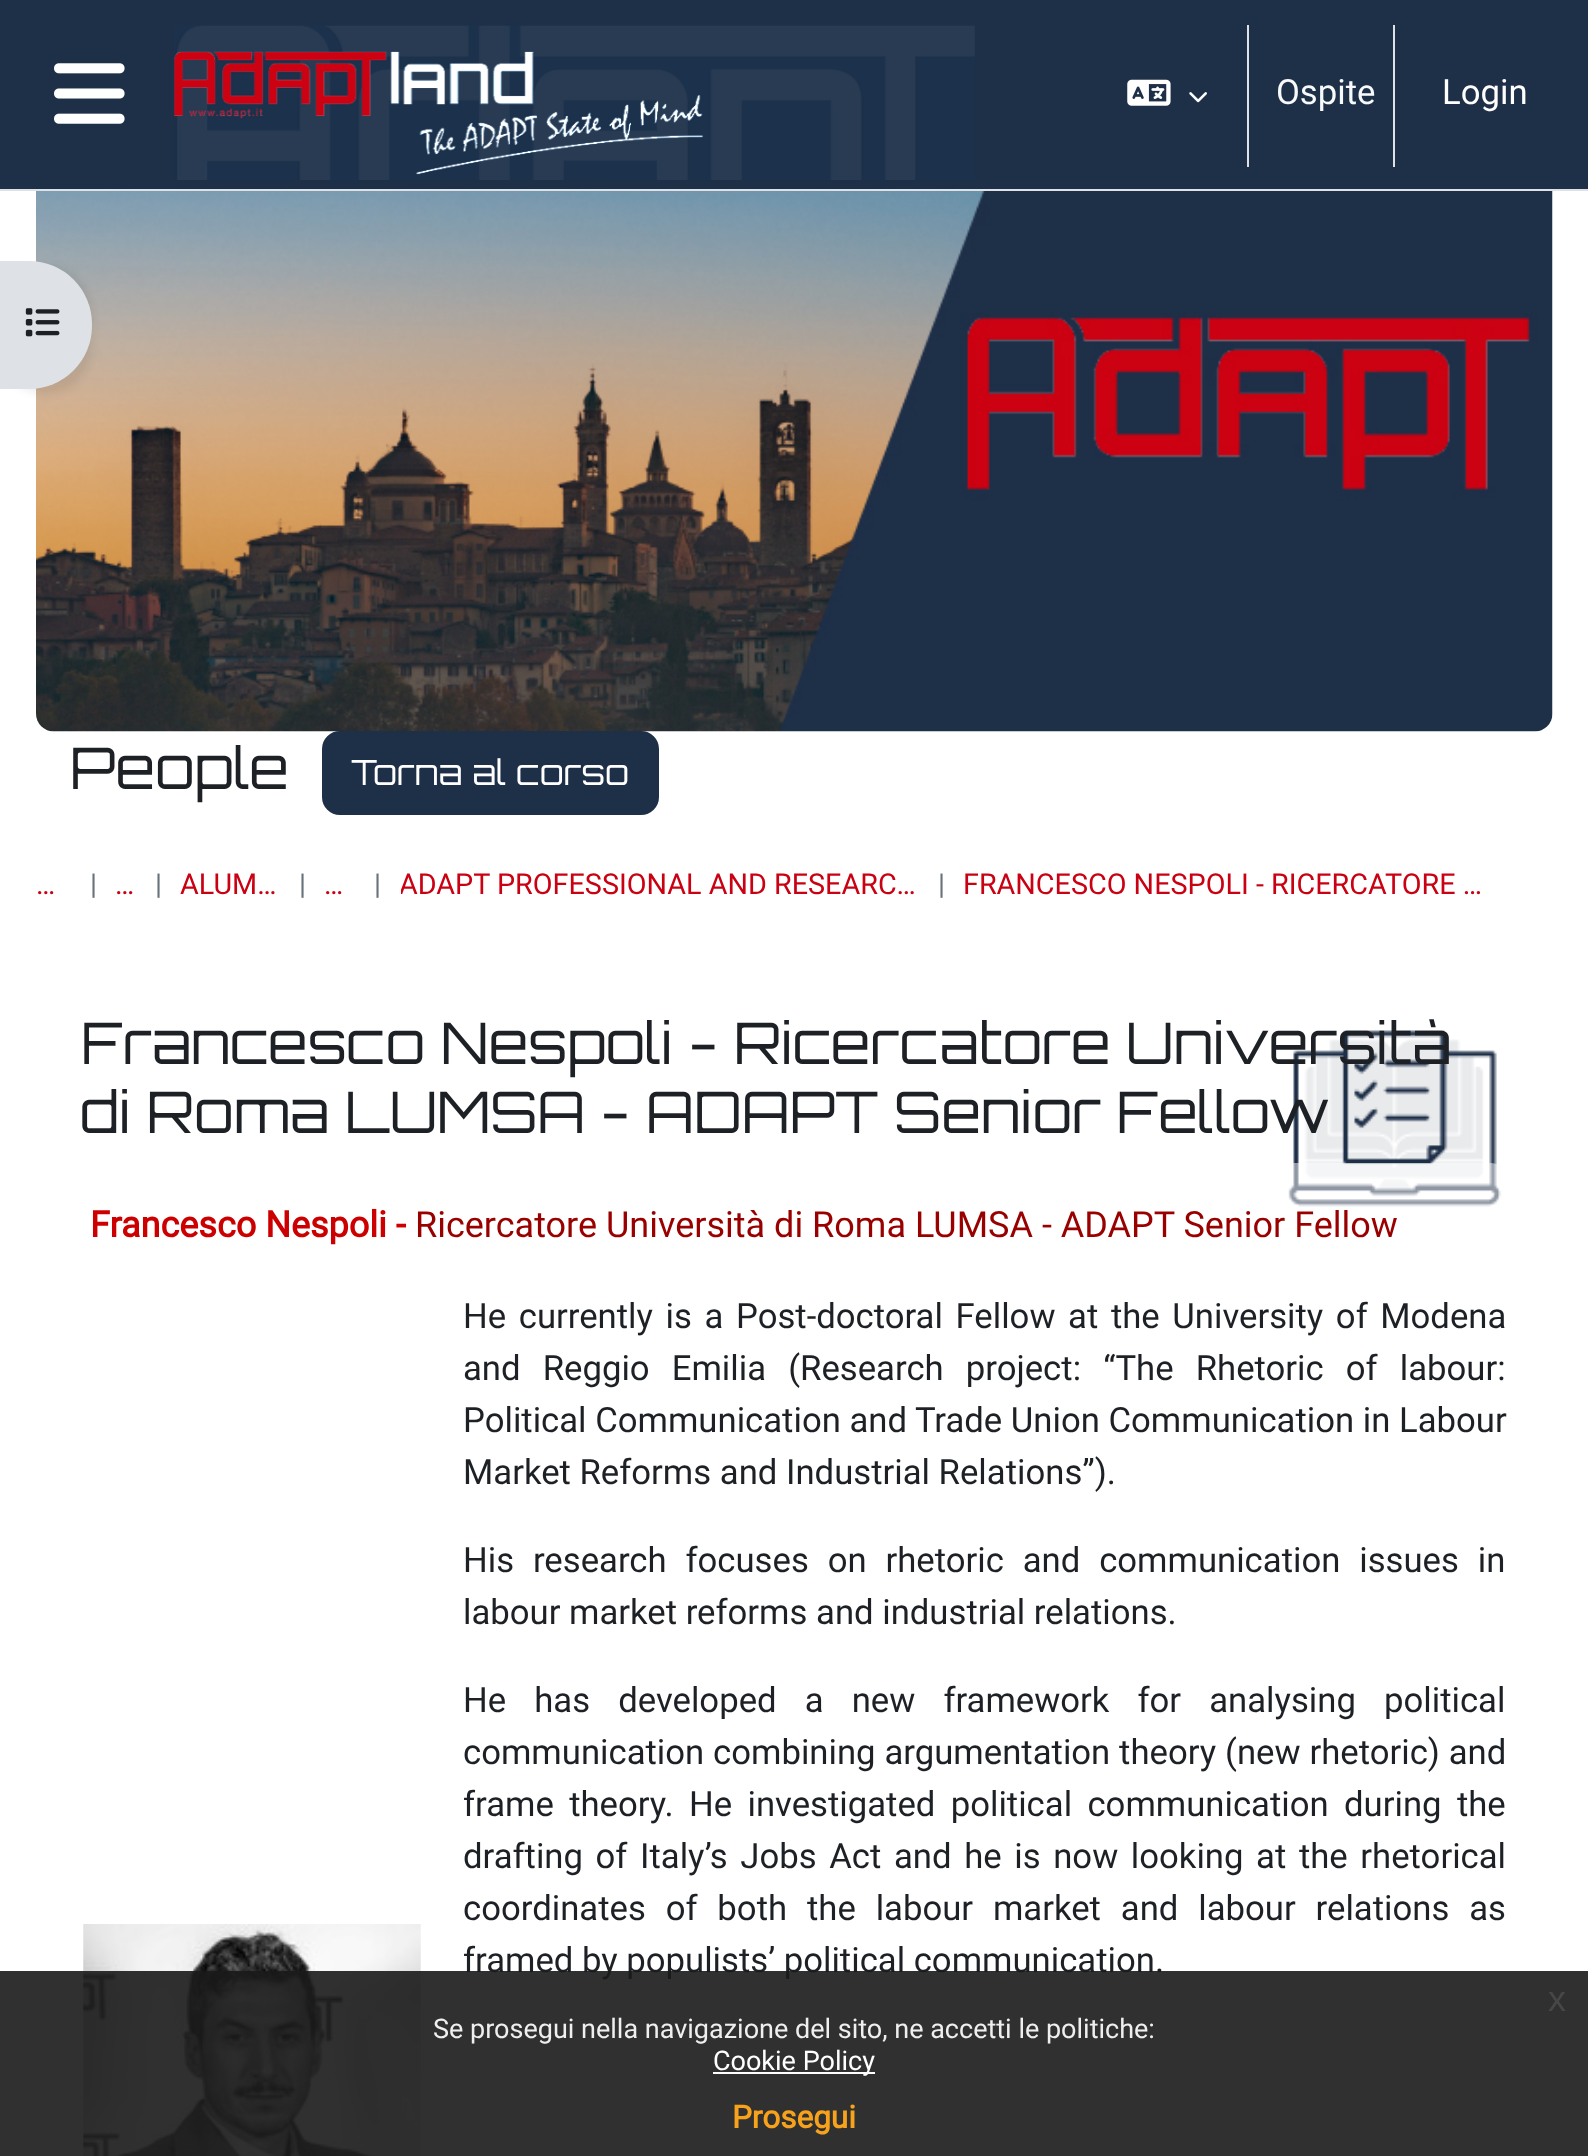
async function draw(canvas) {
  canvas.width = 1588
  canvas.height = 2156
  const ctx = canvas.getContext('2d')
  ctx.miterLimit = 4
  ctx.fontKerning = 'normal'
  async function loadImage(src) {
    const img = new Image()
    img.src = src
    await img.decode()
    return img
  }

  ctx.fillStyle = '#fff'
  ctx.fillRect(0, 0, 1588, 2156)
  ctx.fillStyle = '#1e2f48'
  ctx.fillRect(0, 0, 1588, 189)
  ctx.fillStyle = '#dee2e6'
  ctx.fillRect(0, 189, 1588, 2)
  ctx.drawImage(await loadImage('image0.png'), 54, 63, 71, 61)
  ctx.drawImage(await loadImage('image1.png'), 174, 25, 801, 155)
  ctx.drawImage(await loadImage('image2.png'), 1127, 79, 44, 27)
  ctx.drawImage(await loadImage('image3.png'), 1189, 92, 18, 11)
  ctx.fillRect(1247, 25, 2, 142)
  ctx.font = '34.7px Roboto'
  ctx.fillStyle = '#f8f9fa'
  ctx.fillText('Ospite', 1276, 104)
  ctx.fillStyle = '#dee2e6'
  ctx.fillRect(1393, 25, 2, 142)
  ctx.fillStyle = '#fff'
  ctx.fillText('Login', 1442, 104)
  ctx.drawImage(await loadImage('image4.png'), 36, 191, 1517, 541)
  ctx.font = '57.3px Orbitron'
  ctx.fillStyle = '#1d2125'
  ctx.fillText('People', 70, 789)
  ctx.fillStyle = '#1e2f48'
  ctx.beginPath()
  ctx.roundRect(323, 732, 335, 82, 17)
  ctx.fill()
  ctx.strokeStyle = '#1e2f48'
  ctx.lineWidth = 2
  ctx.stroke()
  ctx.font = '34.7px Orbitron'
  ctx.fillStyle = '#fff'
  ctx.fillText('Torna al corso', 351, 785)
  ctx.font = '28.75px Roboto'
  ctx.fillStyle = '#c90112'
  ctx.fillText('…', 36, 894)
  ctx.fillStyle = '#6a737b'
  ctx.fillText('|', 90, 894)
  ctx.fillStyle = '#c90112'
  ctx.fillText('…', 115, 894)
  ctx.fillStyle = '#6a737b'
  ctx.fillText('|', 155, 894)
  ctx.fillStyle = '#c90112'
  ctx.fillText('ALUM…', 180, 894)
  ctx.fillStyle = '#6a737b'
  ctx.fillText('|', 299, 894)
  ctx.fillStyle = '#c90112'
  ctx.fillText('…', 324, 894)
  ctx.fillStyle = '#6a737b'
  ctx.fillText('|', 374, 894)
  ctx.save()
  ctx.beginPath()
  ctx.rect(401, 862, 519, 43)
  ctx.clip()
  ctx.fillStyle = '#c90112'
  ctx.fillText('ADAPT PROFESSIONAL AND RESEARC…', 399, 894)
  ctx.restore()
  ctx.fillText('|', 938, 894)
  ctx.fillStyle = '#c90112'
  ctx.fillText('FRANCESCO NESPOLI - RICERCATORE …', 963, 894)
  ctx.fillStyle = '#00000012'
  ctx.filter = 'blur(4.5px)'
  ctx.beginPath()
  ctx.roundRect(0, 266, 92, 128, 63)
  ctx.fill()
  ctx.filter = 'none'
  ctx.fillStyle = '#dee2e6'
  ctx.beginPath()
  ctx.roundRect(0, 261, 92, 128, [0, 63, 63, 0])
  ctx.fill()
  ctx.drawImage(await loadImage('image5.png'), 25, 308, 35, 29)
  ctx.drawImage(await loadImage('image6.png'), 1288, 1030, 214, 177)
  ctx.font = '57.3px Orbitron'
  ctx.fillStyle = '#1d2125'
  ctx.fillText('Francesco Nespoli - Ricercatore Università', 81, 1064)
  ctx.fillText('di Roma LUMSA - ADAPT Senior Fellow', 81, 1133)
  ctx.fillStyle = '#ffffff80'
  ctx.beginPath()
  ctx.roundRect(81, 1163, 1427, 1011, 18)
  ctx.fill()
  ctx.font = 'bold 36px Roboto'
  ctx.fillStyle = '#c00'
  ctx.fillText('Francesco Nespoli -', 90, 1237)
  ctx.font = '36px Roboto'
  ctx.fillStyle = '#900'
  ctx.fillText('Ricercatore Università di Roma LUMSA - ADAPT Senior Fellow', 415, 1237)
  ctx.wordSpacing = '4px'
  ctx.font = '34.7px Roboto'
  ctx.fillStyle = '#1d2125'
  ctx.fillText('He currently is a Post-doctoral Fellow at the University of Modena', 463, 1328)
  ctx.wordSpacing = '13.5px'
  ctx.fillText('and Reggio Emilia (Research project: “The Rhetoric of labour:', 463, 1380)
  ctx.wordSpacing = '0px'
  ctx.fillText('Political Communication and Trade Union Communication in Labour', 463, 1432)
  ctx.fillText('Market Reforms and Industrial Relations”).', 463, 1484)
  ctx.wordSpacing = '10.25px'
  ctx.fillText('His research focuses on rhetoric and communication issues in', 463, 1572)
  ctx.wordSpacing = '0px'
  ctx.fillText('labour market reforms and industrial relations.', 463, 1624)
  ctx.wordSpacing = '19.5px'
  ctx.fillText('He has developed a new framework for analysing political', 463, 1712)
  ctx.wordSpacing = '0.25px'
  ctx.fillText('communication combining argumentation theory (new rhetoric) and', 463, 1764)
  ctx.wordSpacing = '6.75px'
  ctx.fillText('frame theory. He investigated political communication during the', 463, 1816)
  ctx.wordSpacing = '4px'
  ctx.fillText('drafting of Italy’s Jobs Act and he is now looking at the rhetorical', 463, 1868)
  ctx.wordSpacing = '11.25px'
  ctx.fillText('coordinates of both the labour market and labour relations as', 463, 1920)
  ctx.wordSpacing = '0px'
  ctx.fillText('framed by populists’ political communication.', 463, 1972)
  ctx.drawImage(await loadImage('image7.png'), 83, 1924, 338, 232)
  ctx.fillStyle = '#191919e6'
  ctx.fillRect(0, 1971, 1588, 185)
  ctx.font = '36px Liberation Sans'
  ctx.fillStyle = '#474747'
  ctx.fillText('x', 1548, 2011)
  ctx.font = '27px Roboto'
  ctx.fillStyle = '#efefef'
  ctx.fillText('Se prosegui nella navigazione del sito, ne accetti le politiche:', 433, 2038)
  ctx.fillStyle = '#fff'
  ctx.fillRect(713, 2072, 162, 2)
  ctx.fillText('Cookie Policy', 713, 2070)
  ctx.font = 'bold 31.5px Roboto'
  ctx.fillStyle = '#f6a21d'
  ctx.fillText('Prosegui', 732, 2128)
}

draw(document.querySelector('canvas'))
